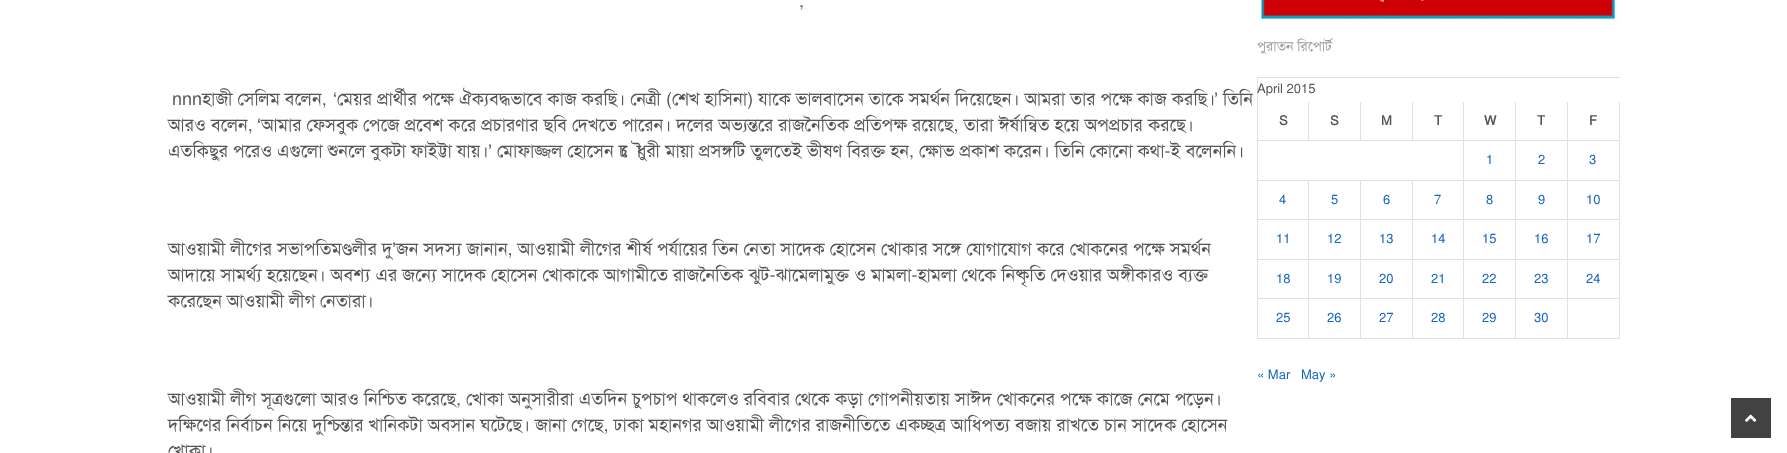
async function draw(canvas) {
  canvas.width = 1787
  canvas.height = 453
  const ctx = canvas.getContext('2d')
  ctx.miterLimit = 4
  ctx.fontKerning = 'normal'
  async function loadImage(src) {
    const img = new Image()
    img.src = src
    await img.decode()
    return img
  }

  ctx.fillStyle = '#fff'
  ctx.fillRect(0, 0, 1787, 453)
  ctx.font = '18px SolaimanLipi'
  ctx.fillStyle = '#555'
  ctx.fillText(',', 799, 7)
  ctx.fillText('nnnহাজী সেলিম বলেন,', 172, 105)
  ctx.font = '18px Liberation Sans'
  ctx.fillText('‘', 333, 105)
  ctx.font = '18px SolaimanLipi'
  ctx.fillText('মেয়র প্রার্থীর পক্ষে ঐক্যবদ্ধভাবে কাজ করছি। নেত্রী (শেখ হাসিনা) যাকে ভালবাসেন তাকে সমর্থন দিয়েছেন। আমরা তার পক্ষে কাজ করছি।', 337, 105)
  ctx.font = '18px Liberation Sans'
  ctx.fillText('’', 1214, 105)
  ctx.font = '18px SolaimanLipi'
  ctx.fillText('তিনি', 1223, 105)
  ctx.fillText('আরও বলেন,', 168, 131)
  ctx.font = '18px Liberation Sans'
  ctx.fillText('‘', 257, 131)
  ctx.font = '18px SolaimanLipi'
  ctx.fillText('আমার ফেসবুক পেজে প্রবেশ করে প্রচারণার ছবি দেখতে পারেন। দলের অভ্যন্তরে রাজনৈতিক প্রতিপক্ষ রয়েছে, তারা ঈর্ষান্বিত হয়ে অপপ্রচার করছে।', 261, 131)
  ctx.fillText('এতকিছুর পরেও এগুলো শুনলে বুকটা ফাইট্টা যায়।', 168, 157)
  ctx.font = '18px Liberation Sans'
  ctx.fillText('’', 488, 157)
  ctx.font = '18px SolaimanLipi'
  ctx.fillText('মোফাজ্জল হোসেন চৌধুরী মায়া প্রসঙ্গটি তুলতেই ভীষণ বিরক্ত হন, ক্ষোভ প্রকাশ করেন। তিনি কোনো কথা-ই বলেননি।', 497, 157)
  ctx.fillText('আওয়ামী লীগের সভাপতিমণ্ডলীর দু', 168, 255)
  ctx.font = '18px Liberation Sans'
  ctx.fillText('’', 392, 255)
  ctx.font = '18px SolaimanLipi'
  ctx.fillText('জন সদস্য জানান, আওয়ামী লীগের শীর্ষ পর্যায়ের তিন নেতা সাদেক হোসেন খোকার সঙ্গে যোগাযোগ করে খোকনের পক্ষে সমর্থন', 396, 255)
  ctx.fillText('আদায়ে সামর্থ্য হয়েছেন। অবশ্য এর জন্যে সাদেক হোসেন খোকাকে আগামীতে রাজনৈতিক ঝুট-ঝামেলামুক্ত ও মামলা-হামলা থেকে নিষ্কৃতি দেওয়ার অঙ্গীকারও ব্যক্ত', 168, 281)
  ctx.fillText('করেছেন আওয়ামী লীগ নেতারা।', 168, 307)
  ctx.fillText('আওয়ামী লীগ সূত্রগুলো আরও নিশ্চিত করেছে, খোকা অনুসারীরা এতদিন চুপচাপ থাকলেও রবিবার থেকে কড়া গোপনীয়তায় সাঈদ খোকনের পক্ষে কাজে নেমে পড়েন।', 168, 405)
  ctx.fillText('দক্ষিণের নির্বাচন নিয়ে দুশ্চিন্তার খানিকটা অবসান ঘটেছে। জানা গেছে, ঢাকা মহানগর আওয়ামী লীগের রাজনীতিতে একচ্ছত্র আধিপত্য বজায় রাখতে চান সাদেক হোসেন', 168, 431)
  ctx.fillText('খোকা।', 168, 457)
  ctx.drawImage(await loadImage('image0.png'), 1259, 0, 358, 21)
  ctx.font = '14px SolaimanLipi'
  ctx.fillStyle = '#9e9e9e'
  ctx.fillText('পুরাতন রিপোর্ট', 1257, 51)
  ctx.fillStyle = '#e0e0e0'
  ctx.beginPath()
  ctx.moveTo(1257, 77)
  ctx.lineTo(1620, 77)
  ctx.lineTo(1620, 78)
  ctx.lineTo(1258, 78)
  ctx.closePath()
  ctx.fill()
  ctx.fillStyle = '#0000001f'
  ctx.beginPath()
  ctx.moveTo(1257, 339)
  ctx.lineTo(1257, 77)
  ctx.lineTo(1258, 78)
  ctx.lineTo(1258, 339)
  ctx.closePath()
  ctx.fill()
  ctx.font = '13px SolaimanLipi'
  ctx.fillStyle = '#555'
  ctx.fillText('April 2015', 1257, 93)
  ctx.fillStyle = '#e0e0e0'
  ctx.beginPath()
  ctx.moveTo(1309, 102)
  ctx.lineTo(1309, 141)
  ctx.lineTo(1308, 140)
  ctx.lineTo(1308, 102)
  ctx.closePath()
  ctx.fill()
  ctx.fillStyle = '#0000001f'
  ctx.beginPath()
  ctx.moveTo(1309, 141)
  ctx.lineTo(1258, 141)
  ctx.lineTo(1258, 140)
  ctx.lineTo(1308, 140)
  ctx.closePath()
  ctx.fill()
  ctx.font = 'bold 13px SolaimanLipi'
  ctx.fillStyle = '#555'
  ctx.fillText('S', 1279, 125)
  ctx.fillStyle = '#e0e0e0'
  ctx.beginPath()
  ctx.moveTo(1361, 102)
  ctx.lineTo(1361, 141)
  ctx.lineTo(1360, 140)
  ctx.lineTo(1360, 102)
  ctx.closePath()
  ctx.fill()
  ctx.fillStyle = '#0000001f'
  ctx.beginPath()
  ctx.moveTo(1361, 141)
  ctx.lineTo(1309, 141)
  ctx.lineTo(1309, 140)
  ctx.lineTo(1360, 140)
  ctx.closePath()
  ctx.fill()
  ctx.fillStyle = '#555'
  ctx.fillText('S', 1330, 125)
  ctx.fillStyle = '#e0e0e0'
  ctx.beginPath()
  ctx.moveTo(1413, 102)
  ctx.lineTo(1413, 141)
  ctx.lineTo(1412, 140)
  ctx.lineTo(1412, 102)
  ctx.closePath()
  ctx.fill()
  ctx.fillStyle = '#0000001f'
  ctx.beginPath()
  ctx.moveTo(1413, 141)
  ctx.lineTo(1361, 141)
  ctx.lineTo(1361, 140)
  ctx.lineTo(1412, 140)
  ctx.closePath()
  ctx.fill()
  ctx.fillStyle = '#555'
  ctx.fillText('M', 1381, 125)
  ctx.fillStyle = '#e0e0e0'
  ctx.beginPath()
  ctx.moveTo(1464, 102)
  ctx.lineTo(1464, 141)
  ctx.lineTo(1463, 140)
  ctx.lineTo(1463, 102)
  ctx.closePath()
  ctx.fill()
  ctx.fillStyle = '#0000001f'
  ctx.beginPath()
  ctx.moveTo(1464, 141)
  ctx.lineTo(1413, 141)
  ctx.lineTo(1413, 140)
  ctx.lineTo(1463, 140)
  ctx.closePath()
  ctx.fill()
  ctx.fillStyle = '#555'
  ctx.fillText('T', 1434, 125)
  ctx.fillStyle = '#e0e0e0'
  ctx.beginPath()
  ctx.moveTo(1516, 102)
  ctx.lineTo(1516, 141)
  ctx.lineTo(1515, 140)
  ctx.lineTo(1515, 102)
  ctx.closePath()
  ctx.fill()
  ctx.fillStyle = '#0000001f'
  ctx.beginPath()
  ctx.moveTo(1516, 141)
  ctx.lineTo(1464, 141)
  ctx.lineTo(1464, 140)
  ctx.lineTo(1515, 140)
  ctx.closePath()
  ctx.fill()
  ctx.fillStyle = '#555'
  ctx.fillText('W', 1484, 125)
  ctx.fillStyle = '#e0e0e0'
  ctx.beginPath()
  ctx.moveTo(1568, 102)
  ctx.lineTo(1568, 141)
  ctx.lineTo(1567, 140)
  ctx.lineTo(1567, 102)
  ctx.closePath()
  ctx.fill()
  ctx.fillStyle = '#0000001f'
  ctx.beginPath()
  ctx.moveTo(1568, 141)
  ctx.lineTo(1516, 141)
  ctx.lineTo(1516, 140)
  ctx.lineTo(1567, 140)
  ctx.closePath()
  ctx.fill()
  ctx.fillStyle = '#555'
  ctx.fillText('T', 1537, 125)
  ctx.fillStyle = '#e0e0e0'
  ctx.beginPath()
  ctx.moveTo(1620, 102)
  ctx.lineTo(1620, 141)
  ctx.lineTo(1619, 140)
  ctx.lineTo(1619, 102)
  ctx.closePath()
  ctx.fill()
  ctx.fillStyle = '#0000001f'
  ctx.beginPath()
  ctx.moveTo(1620, 141)
  ctx.lineTo(1568, 141)
  ctx.lineTo(1568, 140)
  ctx.lineTo(1619, 140)
  ctx.closePath()
  ctx.fill()
  ctx.fillStyle = '#555'
  ctx.fillText('F', 1589, 125)
  ctx.fillStyle = '#e0e0e0'
  ctx.beginPath()
  ctx.moveTo(1464, 141)
  ctx.lineTo(1464, 181)
  ctx.lineTo(1463, 180)
  ctx.lineTo(1463, 141)
  ctx.closePath()
  ctx.fill()
  ctx.fillStyle = '#0000001f'
  ctx.beginPath()
  ctx.moveTo(1464, 181)
  ctx.lineTo(1258, 181)
  ctx.lineTo(1258, 180)
  ctx.lineTo(1463, 180)
  ctx.closePath()
  ctx.fill()
  ctx.fillStyle = '#e0e0e0'
  ctx.beginPath()
  ctx.moveTo(1516, 141)
  ctx.lineTo(1516, 181)
  ctx.lineTo(1515, 180)
  ctx.lineTo(1515, 141)
  ctx.closePath()
  ctx.fill()
  ctx.fillStyle = '#0000001f'
  ctx.beginPath()
  ctx.moveTo(1516, 181)
  ctx.lineTo(1464, 181)
  ctx.lineTo(1464, 180)
  ctx.lineTo(1515, 180)
  ctx.closePath()
  ctx.fill()
  ctx.font = '13px SolaimanLipi'
  ctx.fillStyle = '#1565c0'
  ctx.fillText('1', 1486, 164)
  ctx.fillStyle = '#e0e0e0'
  ctx.beginPath()
  ctx.moveTo(1568, 141)
  ctx.lineTo(1568, 181)
  ctx.lineTo(1567, 180)
  ctx.lineTo(1567, 141)
  ctx.closePath()
  ctx.fill()
  ctx.fillStyle = '#0000001f'
  ctx.beginPath()
  ctx.moveTo(1568, 181)
  ctx.lineTo(1516, 181)
  ctx.lineTo(1516, 180)
  ctx.lineTo(1567, 180)
  ctx.closePath()
  ctx.fill()
  ctx.fillStyle = '#1565c0'
  ctx.fillText('2', 1538, 164)
  ctx.fillStyle = '#e0e0e0'
  ctx.beginPath()
  ctx.moveTo(1620, 141)
  ctx.lineTo(1620, 181)
  ctx.lineTo(1619, 180)
  ctx.lineTo(1619, 141)
  ctx.closePath()
  ctx.fill()
  ctx.fillStyle = '#0000001f'
  ctx.beginPath()
  ctx.moveTo(1620, 181)
  ctx.lineTo(1568, 181)
  ctx.lineTo(1568, 180)
  ctx.lineTo(1619, 180)
  ctx.closePath()
  ctx.fill()
  ctx.fillStyle = '#1565c0'
  ctx.fillText('3', 1589, 164)
  ctx.fillStyle = '#e0e0e0'
  ctx.beginPath()
  ctx.moveTo(1309, 181)
  ctx.lineTo(1309, 220)
  ctx.lineTo(1308, 219)
  ctx.lineTo(1308, 181)
  ctx.closePath()
  ctx.fill()
  ctx.fillStyle = '#0000001f'
  ctx.beginPath()
  ctx.moveTo(1309, 220)
  ctx.lineTo(1258, 220)
  ctx.lineTo(1258, 219)
  ctx.lineTo(1308, 219)
  ctx.closePath()
  ctx.fill()
  ctx.fillStyle = '#1565c0'
  ctx.fillText('4', 1279, 204)
  ctx.fillStyle = '#e0e0e0'
  ctx.beginPath()
  ctx.moveTo(1361, 181)
  ctx.lineTo(1361, 220)
  ctx.lineTo(1360, 219)
  ctx.lineTo(1360, 181)
  ctx.closePath()
  ctx.fill()
  ctx.fillStyle = '#0000001f'
  ctx.beginPath()
  ctx.moveTo(1361, 220)
  ctx.lineTo(1309, 220)
  ctx.lineTo(1309, 219)
  ctx.lineTo(1360, 219)
  ctx.closePath()
  ctx.fill()
  ctx.fillStyle = '#1565c0'
  ctx.fillText('5', 1331, 204)
  ctx.fillStyle = '#e0e0e0'
  ctx.beginPath()
  ctx.moveTo(1413, 181)
  ctx.lineTo(1413, 220)
  ctx.lineTo(1412, 219)
  ctx.lineTo(1412, 181)
  ctx.closePath()
  ctx.fill()
  ctx.fillStyle = '#0000001f'
  ctx.beginPath()
  ctx.moveTo(1413, 220)
  ctx.lineTo(1361, 220)
  ctx.lineTo(1361, 219)
  ctx.lineTo(1412, 219)
  ctx.closePath()
  ctx.fill()
  ctx.fillStyle = '#1565c0'
  ctx.fillText('6', 1383, 204)
  ctx.fillStyle = '#e0e0e0'
  ctx.beginPath()
  ctx.moveTo(1464, 181)
  ctx.lineTo(1464, 220)
  ctx.lineTo(1463, 219)
  ctx.lineTo(1463, 181)
  ctx.closePath()
  ctx.fill()
  ctx.fillStyle = '#0000001f'
  ctx.beginPath()
  ctx.moveTo(1464, 220)
  ctx.lineTo(1413, 220)
  ctx.lineTo(1413, 219)
  ctx.lineTo(1463, 219)
  ctx.closePath()
  ctx.fill()
  ctx.fillStyle = '#1565c0'
  ctx.fillText('7', 1434, 204)
  ctx.fillStyle = '#e0e0e0'
  ctx.beginPath()
  ctx.moveTo(1516, 181)
  ctx.lineTo(1516, 220)
  ctx.lineTo(1515, 219)
  ctx.lineTo(1515, 181)
  ctx.closePath()
  ctx.fill()
  ctx.fillStyle = '#0000001f'
  ctx.beginPath()
  ctx.moveTo(1516, 220)
  ctx.lineTo(1464, 220)
  ctx.lineTo(1464, 219)
  ctx.lineTo(1515, 219)
  ctx.closePath()
  ctx.fill()
  ctx.fillStyle = '#1565c0'
  ctx.fillText('8', 1486, 204)
  ctx.fillStyle = '#e0e0e0'
  ctx.beginPath()
  ctx.moveTo(1568, 181)
  ctx.lineTo(1568, 220)
  ctx.lineTo(1567, 219)
  ctx.lineTo(1567, 181)
  ctx.closePath()
  ctx.fill()
  ctx.fillStyle = '#0000001f'
  ctx.beginPath()
  ctx.moveTo(1568, 220)
  ctx.lineTo(1516, 220)
  ctx.lineTo(1516, 219)
  ctx.lineTo(1567, 219)
  ctx.closePath()
  ctx.fill()
  ctx.fillStyle = '#1565c0'
  ctx.fillText('9', 1538, 204)
  ctx.fillStyle = '#e0e0e0'
  ctx.beginPath()
  ctx.moveTo(1620, 181)
  ctx.lineTo(1620, 220)
  ctx.lineTo(1619, 219)
  ctx.lineTo(1619, 181)
  ctx.closePath()
  ctx.fill()
  ctx.fillStyle = '#0000001f'
  ctx.beginPath()
  ctx.moveTo(1620, 220)
  ctx.lineTo(1568, 220)
  ctx.lineTo(1568, 219)
  ctx.lineTo(1619, 219)
  ctx.closePath()
  ctx.fill()
  ctx.fillStyle = '#1565c0'
  ctx.fillText('10', 1586, 204)
  ctx.fillStyle = '#e0e0e0'
  ctx.beginPath()
  ctx.moveTo(1309, 220)
  ctx.lineTo(1309, 260)
  ctx.lineTo(1308, 259)
  ctx.lineTo(1308, 220)
  ctx.closePath()
  ctx.fill()
  ctx.fillStyle = '#0000001f'
  ctx.beginPath()
  ctx.moveTo(1309, 260)
  ctx.lineTo(1258, 260)
  ctx.lineTo(1258, 259)
  ctx.lineTo(1308, 259)
  ctx.closePath()
  ctx.fill()
  ctx.fillStyle = '#1565c0'
  ctx.fillText('11', 1276, 243)
  ctx.fillStyle = '#e0e0e0'
  ctx.beginPath()
  ctx.moveTo(1361, 220)
  ctx.lineTo(1361, 260)
  ctx.lineTo(1360, 259)
  ctx.lineTo(1360, 220)
  ctx.closePath()
  ctx.fill()
  ctx.fillStyle = '#0000001f'
  ctx.beginPath()
  ctx.moveTo(1361, 260)
  ctx.lineTo(1309, 260)
  ctx.lineTo(1309, 259)
  ctx.lineTo(1360, 259)
  ctx.closePath()
  ctx.fill()
  ctx.fillStyle = '#1565c0'
  ctx.fillText('12', 1327, 243)
  ctx.fillStyle = '#e0e0e0'
  ctx.beginPath()
  ctx.moveTo(1413, 220)
  ctx.lineTo(1413, 260)
  ctx.lineTo(1412, 259)
  ctx.lineTo(1412, 220)
  ctx.closePath()
  ctx.fill()
  ctx.fillStyle = '#0000001f'
  ctx.beginPath()
  ctx.moveTo(1413, 260)
  ctx.lineTo(1361, 260)
  ctx.lineTo(1361, 259)
  ctx.lineTo(1412, 259)
  ctx.closePath()
  ctx.fill()
  ctx.fillStyle = '#1565c0'
  ctx.fillText('13', 1379, 243)
  ctx.fillStyle = '#e0e0e0'
  ctx.beginPath()
  ctx.moveTo(1464, 220)
  ctx.lineTo(1464, 260)
  ctx.lineTo(1463, 259)
  ctx.lineTo(1463, 220)
  ctx.closePath()
  ctx.fill()
  ctx.fillStyle = '#0000001f'
  ctx.beginPath()
  ctx.moveTo(1464, 260)
  ctx.lineTo(1413, 260)
  ctx.lineTo(1413, 259)
  ctx.lineTo(1463, 259)
  ctx.closePath()
  ctx.fill()
  ctx.fillStyle = '#1565c0'
  ctx.fillText('14', 1431, 243)
  ctx.fillStyle = '#e0e0e0'
  ctx.beginPath()
  ctx.moveTo(1516, 220)
  ctx.lineTo(1516, 260)
  ctx.lineTo(1515, 259)
  ctx.lineTo(1515, 220)
  ctx.closePath()
  ctx.fill()
  ctx.fillStyle = '#0000001f'
  ctx.beginPath()
  ctx.moveTo(1516, 260)
  ctx.lineTo(1464, 260)
  ctx.lineTo(1464, 259)
  ctx.lineTo(1515, 259)
  ctx.closePath()
  ctx.fill()
  ctx.fillStyle = '#1565c0'
  ctx.fillText('15', 1482, 243)
  ctx.fillStyle = '#e0e0e0'
  ctx.beginPath()
  ctx.moveTo(1568, 220)
  ctx.lineTo(1568, 260)
  ctx.lineTo(1567, 259)
  ctx.lineTo(1567, 220)
  ctx.closePath()
  ctx.fill()
  ctx.fillStyle = '#0000001f'
  ctx.beginPath()
  ctx.moveTo(1568, 260)
  ctx.lineTo(1516, 260)
  ctx.lineTo(1516, 259)
  ctx.lineTo(1567, 259)
  ctx.closePath()
  ctx.fill()
  ctx.fillStyle = '#1565c0'
  ctx.fillText('16', 1534, 243)
  ctx.fillStyle = '#e0e0e0'
  ctx.beginPath()
  ctx.moveTo(1620, 220)
  ctx.lineTo(1620, 260)
  ctx.lineTo(1619, 259)
  ctx.lineTo(1619, 220)
  ctx.closePath()
  ctx.fill()
  ctx.fillStyle = '#0000001f'
  ctx.beginPath()
  ctx.moveTo(1620, 260)
  ctx.lineTo(1568, 260)
  ctx.lineTo(1568, 259)
  ctx.lineTo(1619, 259)
  ctx.closePath()
  ctx.fill()
  ctx.fillStyle = '#1565c0'
  ctx.fillText('17', 1586, 243)
  ctx.fillStyle = '#e0e0e0'
  ctx.beginPath()
  ctx.moveTo(1309, 260)
  ctx.lineTo(1309, 299)
  ctx.lineTo(1308, 298)
  ctx.lineTo(1308, 260)
  ctx.closePath()
  ctx.fill()
  ctx.fillStyle = '#0000001f'
  ctx.beginPath()
  ctx.moveTo(1309, 299)
  ctx.lineTo(1258, 299)
  ctx.lineTo(1258, 298)
  ctx.lineTo(1308, 298)
  ctx.closePath()
  ctx.fill()
  ctx.fillStyle = '#1565c0'
  ctx.fillText('18', 1276, 283)
  ctx.fillStyle = '#e0e0e0'
  ctx.beginPath()
  ctx.moveTo(1361, 260)
  ctx.lineTo(1361, 299)
  ctx.lineTo(1360, 298)
  ctx.lineTo(1360, 260)
  ctx.closePath()
  ctx.fill()
  ctx.fillStyle = '#0000001f'
  ctx.beginPath()
  ctx.moveTo(1361, 299)
  ctx.lineTo(1309, 299)
  ctx.lineTo(1309, 298)
  ctx.lineTo(1360, 298)
  ctx.closePath()
  ctx.fill()
  ctx.fillStyle = '#1565c0'
  ctx.fillText('19', 1327, 283)
  ctx.fillStyle = '#e0e0e0'
  ctx.beginPath()
  ctx.moveTo(1413, 260)
  ctx.lineTo(1413, 299)
  ctx.lineTo(1412, 298)
  ctx.lineTo(1412, 260)
  ctx.closePath()
  ctx.fill()
  ctx.fillStyle = '#0000001f'
  ctx.beginPath()
  ctx.moveTo(1413, 299)
  ctx.lineTo(1361, 299)
  ctx.lineTo(1361, 298)
  ctx.lineTo(1412, 298)
  ctx.closePath()
  ctx.fill()
  ctx.fillStyle = '#1565c0'
  ctx.fillText('20', 1379, 283)
  ctx.fillStyle = '#e0e0e0'
  ctx.beginPath()
  ctx.moveTo(1464, 260)
  ctx.lineTo(1464, 299)
  ctx.lineTo(1463, 298)
  ctx.lineTo(1463, 260)
  ctx.closePath()
  ctx.fill()
  ctx.fillStyle = '#0000001f'
  ctx.beginPath()
  ctx.moveTo(1464, 299)
  ctx.lineTo(1413, 299)
  ctx.lineTo(1413, 298)
  ctx.lineTo(1463, 298)
  ctx.closePath()
  ctx.fill()
  ctx.fillStyle = '#1565c0'
  ctx.fillText('21', 1431, 283)
  ctx.fillStyle = '#e0e0e0'
  ctx.beginPath()
  ctx.moveTo(1516, 260)
  ctx.lineTo(1516, 299)
  ctx.lineTo(1515, 298)
  ctx.lineTo(1515, 260)
  ctx.closePath()
  ctx.fill()
  ctx.fillStyle = '#0000001f'
  ctx.beginPath()
  ctx.moveTo(1516, 299)
  ctx.lineTo(1464, 299)
  ctx.lineTo(1464, 298)
  ctx.lineTo(1515, 298)
  ctx.closePath()
  ctx.fill()
  ctx.fillStyle = '#1565c0'
  ctx.fillText('22', 1482, 283)
  ctx.fillStyle = '#e0e0e0'
  ctx.beginPath()
  ctx.moveTo(1568, 260)
  ctx.lineTo(1568, 299)
  ctx.lineTo(1567, 298)
  ctx.lineTo(1567, 260)
  ctx.closePath()
  ctx.fill()
  ctx.fillStyle = '#0000001f'
  ctx.beginPath()
  ctx.moveTo(1568, 299)
  ctx.lineTo(1516, 299)
  ctx.lineTo(1516, 298)
  ctx.lineTo(1567, 298)
  ctx.closePath()
  ctx.fill()
  ctx.fillStyle = '#1565c0'
  ctx.fillText('23', 1534, 283)
  ctx.fillStyle = '#e0e0e0'
  ctx.beginPath()
  ctx.moveTo(1620, 260)
  ctx.lineTo(1620, 299)
  ctx.lineTo(1619, 298)
  ctx.lineTo(1619, 260)
  ctx.closePath()
  ctx.fill()
  ctx.fillStyle = '#0000001f'
  ctx.beginPath()
  ctx.moveTo(1620, 299)
  ctx.lineTo(1568, 299)
  ctx.lineTo(1568, 298)
  ctx.lineTo(1619, 298)
  ctx.closePath()
  ctx.fill()
  ctx.fillStyle = '#1565c0'
  ctx.fillText('24', 1586, 283)
  ctx.fillStyle = '#e0e0e0'
  ctx.beginPath()
  ctx.moveTo(1309, 299)
  ctx.lineTo(1309, 339)
  ctx.lineTo(1308, 338)
  ctx.lineTo(1308, 299)
  ctx.closePath()
  ctx.fill()
  ctx.fillStyle = '#0000001f'
  ctx.beginPath()
  ctx.moveTo(1309, 339)
  ctx.lineTo(1258, 339)
  ctx.lineTo(1258, 338)
  ctx.lineTo(1308, 338)
  ctx.closePath()
  ctx.fill()
  ctx.fillStyle = '#1565c0'
  ctx.fillText('25', 1276, 322)
  ctx.fillStyle = '#e0e0e0'
  ctx.beginPath()
  ctx.moveTo(1361, 299)
  ctx.lineTo(1361, 339)
  ctx.lineTo(1360, 338)
  ctx.lineTo(1360, 299)
  ctx.closePath()
  ctx.fill()
  ctx.fillStyle = '#0000001f'
  ctx.beginPath()
  ctx.moveTo(1361, 339)
  ctx.lineTo(1309, 339)
  ctx.lineTo(1309, 338)
  ctx.lineTo(1360, 338)
  ctx.closePath()
  ctx.fill()
  ctx.fillStyle = '#1565c0'
  ctx.fillText('26', 1327, 322)
  ctx.fillStyle = '#e0e0e0'
  ctx.beginPath()
  ctx.moveTo(1413, 299)
  ctx.lineTo(1413, 339)
  ctx.lineTo(1412, 338)
  ctx.lineTo(1412, 299)
  ctx.closePath()
  ctx.fill()
  ctx.fillStyle = '#0000001f'
  ctx.beginPath()
  ctx.moveTo(1413, 339)
  ctx.lineTo(1361, 339)
  ctx.lineTo(1361, 338)
  ctx.lineTo(1412, 338)
  ctx.closePath()
  ctx.fill()
  ctx.fillStyle = '#1565c0'
  ctx.fillText('27', 1379, 322)
  ctx.fillStyle = '#e0e0e0'
  ctx.beginPath()
  ctx.moveTo(1464, 299)
  ctx.lineTo(1464, 339)
  ctx.lineTo(1463, 338)
  ctx.lineTo(1463, 299)
  ctx.closePath()
  ctx.fill()
  ctx.fillStyle = '#0000001f'
  ctx.beginPath()
  ctx.moveTo(1464, 339)
  ctx.lineTo(1413, 339)
  ctx.lineTo(1413, 338)
  ctx.lineTo(1463, 338)
  ctx.closePath()
  ctx.fill()
  ctx.fillStyle = '#1565c0'
  ctx.fillText('28', 1431, 322)
  ctx.fillStyle = '#e0e0e0'
  ctx.beginPath()
  ctx.moveTo(1516, 299)
  ctx.lineTo(1516, 339)
  ctx.lineTo(1515, 338)
  ctx.lineTo(1515, 299)
  ctx.closePath()
  ctx.fill()
  ctx.fillStyle = '#0000001f'
  ctx.beginPath()
  ctx.moveTo(1516, 339)
  ctx.lineTo(1464, 339)
  ctx.lineTo(1464, 338)
  ctx.lineTo(1515, 338)
  ctx.closePath()
  ctx.fill()
  ctx.fillStyle = '#1565c0'
  ctx.fillText('29', 1482, 322)
  ctx.fillStyle = '#e0e0e0'
  ctx.beginPath()
  ctx.moveTo(1568, 299)
  ctx.lineTo(1568, 339)
  ctx.lineTo(1567, 338)
  ctx.lineTo(1567, 299)
  ctx.closePath()
  ctx.fill()
  ctx.fillStyle = '#0000001f'
  ctx.beginPath()
  ctx.moveTo(1568, 339)
  ctx.lineTo(1516, 339)
  ctx.lineTo(1516, 338)
  ctx.lineTo(1567, 338)
  ctx.closePath()
  ctx.fill()
  ctx.fillStyle = '#1565c0'
  ctx.fillText('30', 1534, 322)
  ctx.fillStyle = '#e0e0e0'
  ctx.beginPath()
  ctx.moveTo(1620, 299)
  ctx.lineTo(1620, 339)
  ctx.lineTo(1619, 338)
  ctx.lineTo(1619, 299)
  ctx.closePath()
  ctx.fill()
  ctx.fillStyle = '#0000001f'
  ctx.beginPath()
  ctx.moveTo(1620, 339)
  ctx.lineTo(1568, 339)
  ctx.lineTo(1568, 338)
  ctx.lineTo(1619, 338)
  ctx.closePath()
  ctx.fill()
  ctx.fillStyle = '#1565c0'
  ctx.fillText('« Mar', 1257, 379)
  ctx.fillText('May »', 1301, 379)
  ctx.fillStyle = '#424242'
  ctx.fillRect(1731, 398, 40, 40)
  ctx.drawImage(await loadImage('image1.png'), 1745, 414, 12, 8)
}

draw(document.querySelector('canvas'))
